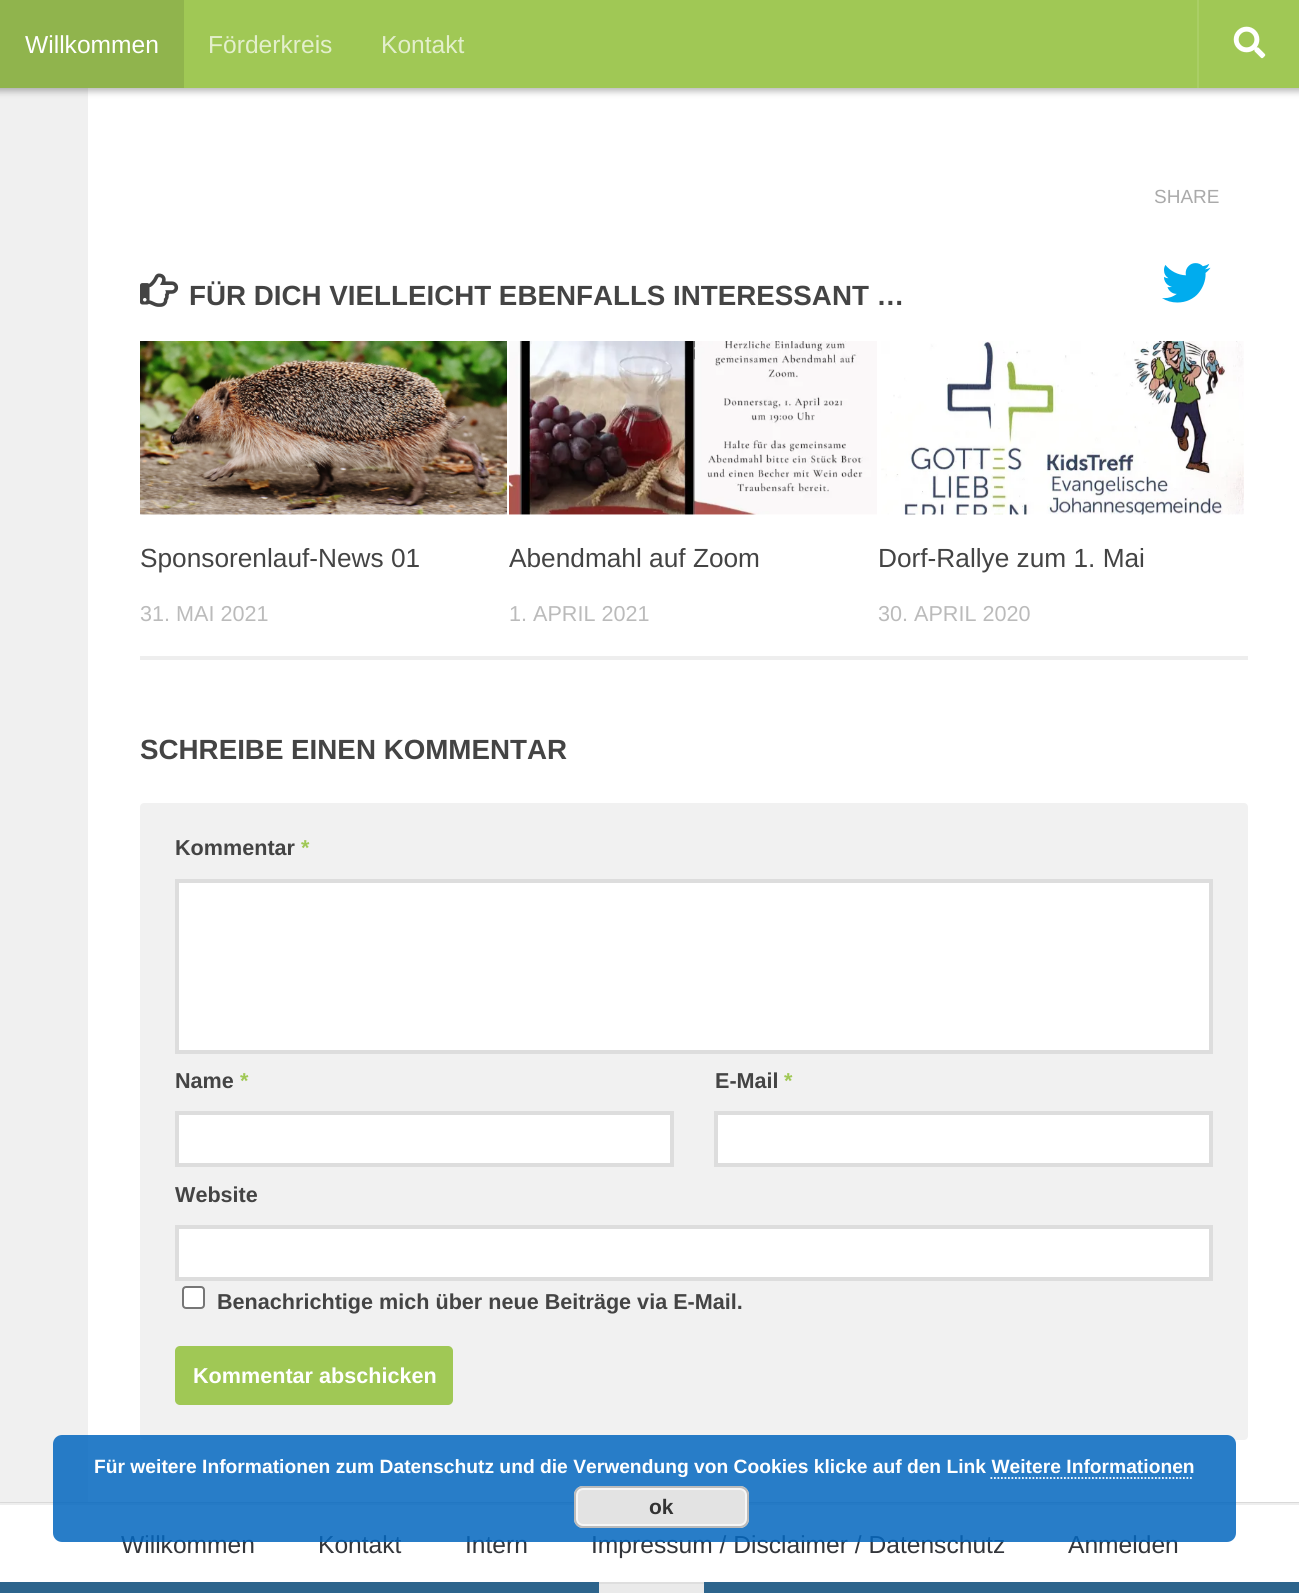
#include <cairo.h>
#include <math.h>
#include <stddef.h>

typedef struct { double x, y; const char *s; } line_t;
typedef struct { double x, y, w, h; unsigned color; } box_t;

static void ink(cairo_t *ctx, unsigned color) {
    cairo_set_source_rgb(ctx, (color >> 16) / 255.0, (color >> 8 & 255) / 255.0, (color & 255) / 255.0);
}

static void round_path(cairo_t *ctx, double x, double y, double w, double h, double r) {
    cairo_new_sub_path(ctx);
    cairo_arc(ctx, x + w - r, y + h - r, r, 0, M_PI / 2);
    cairo_arc(ctx, x + r, y + h - r, r, M_PI / 2, M_PI);
    cairo_arc(ctx, x + r, y + r, r, M_PI, 1.5 * M_PI);
    cairo_arc(ctx, x + w - r, y + r, r, 1.5 * M_PI, 2 * M_PI);
    cairo_close_path(ctx);
}

static void blur_box(cairo_t *ctx, double x, double y, double w, double h, double r, double blur, double alpha) {
    cairo_push_group_with_content(ctx, CAIRO_CONTENT_ALPHA);
    cairo_set_operator(ctx, CAIRO_OPERATOR_SOURCE);
    for (int i = 15; i >= -15 && fmin(w, h) + blur * i / 3 > 0; i -= 2) {
        double e = blur * i / 6;
        cairo_set_source_rgba(ctx, 0, 0, 0, alpha * erfc((i - 1) / 8.5) / 2);
        round_path(ctx, x - e, y - e, w + 2 * e, h + 2 * e, fmax(0, fmin(r + e + blur * .6, fmin(w, h) / 2 + e)));
        cairo_fill(ctx);
    }
    cairo_pattern_t *soft = cairo_pop_group(ctx);
    cairo_mask(ctx, soft);
    cairo_pattern_destroy(soft);
}

static void paste(cairo_t *ctx, const char *path, double x, double y, double w, double h) {
    cairo_surface_t *image = cairo_image_surface_create_from_png(path);
    cairo_save(ctx);
    cairo_set_source_surface(ctx, image, x, y);
    cairo_rectangle(ctx, x, y, w, h);
    cairo_fill(ctx);
    cairo_restore(ctx);
    cairo_surface_destroy(image);
}

int main(void) {
    cairo_surface_t *surface = cairo_image_surface_create(CAIRO_FORMAT_RGB24, 1299, 1593);
    cairo_t *ctx = cairo_create(surface);
    cairo_font_options_t *options = cairo_font_options_create();
    cairo_font_options_set_hint_metrics(options, CAIRO_HINT_METRICS_OFF);
    cairo_font_options_set_hint_style(options, CAIRO_HINT_STYLE_NONE);
    cairo_set_font_options(ctx, options);
    cairo_set_miter_limit(ctx, 4);
    ink(ctx, 0xEAEAEA);
    cairo_paint(ctx);
    ink(ctx, 0x000000);
    blur_box(ctx, 0, -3, 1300, 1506, 0, 1, 0.1);
    ink(ctx, 0xFFFFFF);
    cairo_rectangle(ctx, 88, 88, 1211, 1414);
    cairo_fill(ctx);
    ink(ctx, 0xF0F0F0);
    cairo_rectangle(ctx, 0, 88, 88, 1414);
    cairo_fill(ctx);
    ink(ctx, 0x000000);
    blur_box(ctx, -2, 0, 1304, 91, 0, 3.5, 0.3);
    ink(ctx, 0xA0C855);
    cairo_rectangle(ctx, 184, 0, 1115, 88);
    cairo_fill(ctx);
    ink(ctx, 0x90B44D);
    cairo_rectangle(ctx, 0, 0, 184, 88);
    cairo_fill(ctx);
    cairo_select_font_face(ctx, "Liberation Sans", CAIRO_FONT_SLANT_NORMAL, CAIRO_FONT_WEIGHT_NORMAL);
    cairo_set_font_size(ctx, 24.6);
    ink(ctx, 0xFFFFFF);
    cairo_move_to(ctx, 25, 53);
    cairo_show_text(ctx, "Willkommen");
    ink(ctx, 0xE3EFCC);
    cairo_move_to(ctx, 208, 53);
    cairo_show_text(ctx, "Förderkreis");
    cairo_move_to(ctx, 381, 53);
    cairo_show_text(ctx, "Kontakt");
    ink(ctx, 0xAACE66);
    cairo_new_path(ctx);
    cairo_move_to(ctx, 1197, 0);
    cairo_line_to(ctx, 1197, 88);
    cairo_line_to(ctx, 1299, 88);
    cairo_line_to(ctx, 1199, 88);
    cairo_line_to(ctx, 1199, 0);
    cairo_close_path(ctx);
    cairo_fill(ctx);
    paste(ctx, "media/1.png", 1233, 26, 33, 33);
    cairo_set_font_size(ctx, 19);
    ink(ctx, 0xAAAAAA);
    cairo_move_to(ctx, 1154, 203);
    cairo_show_text(ctx, "SHARE");
    paste(ctx, "media/2.png", 1162, 263, 49, 40);
    paste(ctx, "media/3.png", 140, 273, 39, 34);
    cairo_select_font_face(ctx, "Liberation Sans", CAIRO_FONT_SLANT_NORMAL, CAIRO_FONT_WEIGHT_BOLD);
    cairo_set_font_size(ctx, 27.75);
    ink(ctx, 0x444444);
    cairo_move_to(ctx, 189, 305);
    cairo_show_text(ctx, "FÜR DICH VIELLEICHT EBENFALLS INTERESSANT …");
    ink(ctx, 0xEEEEEE);
    cairo_rectangle(ctx, 140, 656, 1108, 4);
    cairo_fill(ctx);
    paste(ctx, "media/4.png", 140, 341, 367, 174);
    cairo_select_font_face(ctx, "Liberation Sans", CAIRO_FONT_SLANT_NORMAL, CAIRO_FONT_WEIGHT_NORMAL);
    cairo_set_font_size(ctx, 26.25);
    ink(ctx, 0x444444);
    cairo_move_to(ctx, 140, 567);
    cairo_show_text(ctx, "Sponsorenlauf-News 01");
    cairo_set_font_size(ctx, 21.6);
    ink(ctx, 0xBBBBBB);
    cairo_move_to(ctx, 140, 621);
    cairo_show_text(ctx, "31. MAI 2021");
    paste(ctx, "media/5.png", 509, 341, 368, 174);
    cairo_set_font_size(ctx, 26.25);
    ink(ctx, 0x444444);
    cairo_move_to(ctx, 509, 567);
    cairo_show_text(ctx, "Abendmahl auf Zoom");
    cairo_set_font_size(ctx, 21.6);
    ink(ctx, 0xBBBBBB);
    cairo_move_to(ctx, 509, 621);
    cairo_show_text(ctx, "1. APRIL 2021");
    paste(ctx, "media/6.png", 881, 341, 363, 174);
    cairo_set_font_size(ctx, 26.25);
    ink(ctx, 0x444444);
    cairo_move_to(ctx, 878, 567);
    cairo_show_text(ctx, "Dorf-Rallye zum 1. Mai");
    cairo_set_font_size(ctx, 21.6);
    ink(ctx, 0xBBBBBB);
    cairo_move_to(ctx, 878, 621);
    cairo_show_text(ctx, "30. APRIL 2020");
    cairo_select_font_face(ctx, "Liberation Sans", CAIRO_FONT_SLANT_NORMAL, CAIRO_FONT_WEIGHT_BOLD);
    cairo_set_font_size(ctx, 27.75);
    ink(ctx, 0x444444);
    cairo_move_to(ctx, 140, 759);
    cairo_show_text(ctx, "SCHREIBE EINEN KOMMENTAR");
    ink(ctx, 0xF1F1F1);
    round_path(ctx, 140, 803, 1108, 637, 4);
    cairo_fill(ctx);
    cairo_set_font_size(ctx, 21.6);
    ink(ctx, 0x444444);
    cairo_move_to(ctx, 175, 855);
    cairo_show_text(ctx, "Kommentar");
    ink(ctx, 0xA0C855);
    cairo_move_to(ctx, 301, 855);
    cairo_show_text(ctx, "*");
    ink(ctx, 0xFFFFFF);
    cairo_rectangle(ctx, 177, 881, 1034, 171);
    cairo_fill_preserve(ctx);
    ink(ctx, 0xDDDDDD);
    cairo_set_line_width(ctx, 4);
    cairo_stroke(ctx);
    ink(ctx, 0x444444);
    cairo_move_to(ctx, 175, 1088);
    cairo_show_text(ctx, "Name");
    ink(ctx, 0xA0C855);
    cairo_move_to(ctx, 240, 1088);
    cairo_show_text(ctx, "*");
    ink(ctx, 0xFFFFFF);
    cairo_rectangle(ctx, 177, 1113, 495, 52);
    cairo_fill_preserve(ctx);
    ink(ctx, 0xDDDDDD);
    cairo_stroke(ctx);
    ink(ctx, 0x444444);
    cairo_move_to(ctx, 715, 1088);
    cairo_show_text(ctx, "E-Mail");
    ink(ctx, 0xA0C855);
    cairo_move_to(ctx, 784, 1088);
    cairo_show_text(ctx, "*");
    ink(ctx, 0xFFFFFF);
    cairo_rectangle(ctx, 716, 1113, 495, 52);
    cairo_fill_preserve(ctx);
    ink(ctx, 0xDDDDDD);
    cairo_stroke(ctx);
    ink(ctx, 0x444444);
    cairo_move_to(ctx, 175, 1202);
    cairo_show_text(ctx, "Website");
    ink(ctx, 0xFFFFFF);
    cairo_rectangle(ctx, 177, 1227, 1034, 52);
    cairo_fill_preserve(ctx);
    ink(ctx, 0xDDDDDD);
    cairo_stroke(ctx);
    ink(ctx, 0xFFFFFF);
    round_path(ctx, 183, 1287, 21, 21, 3);
    cairo_fill_preserve(ctx);
    ink(ctx, 0x767676);
    cairo_set_line_width(ctx, 2);
    cairo_stroke(ctx);
    ink(ctx, 0x444444);
    cairo_move_to(ctx, 217, 1309);
    cairo_show_text(ctx, "Benachrichtige mich über neue Beiträge via E-Mail.");
    ink(ctx, 0xA0C855);
    round_path(ctx, 175, 1346, 278, 59, 5);
    cairo_fill(ctx);
    ink(ctx, 0xFFFFFF);
    cairo_move_to(ctx, 193, 1383);
    cairo_show_text(ctx, "Kommentar abschicken");
    cairo_rectangle(ctx, 0, 1505, 1299, 77);
    cairo_fill(ctx);
    ink(ctx, 0xEEEEEE);
    cairo_rectangle(ctx, 0, 1503, 1299, 2);
    cairo_fill(ctx);
    cairo_select_font_face(ctx, "Liberation Sans", CAIRO_FONT_SLANT_NORMAL, CAIRO_FONT_WEIGHT_NORMAL);
    cairo_set_font_size(ctx, 24.6);
    ink(ctx, 0x33363B);
    {
        static const line_t items[] = {
            {121, 1553, "Willkommen"},
            {318, 1553, "Kontakt"},
            {465, 1553, "Intern"},
            {591, 1553, "Impressum / Disclaimer / Datenschutz"},
            {1068, 1553, "Anmelden"},
        };
        for (size_t i = 0; i < sizeof items / sizeof *items; i++) {
            cairo_move_to(ctx, items[i].x, items[i].y);
            cairo_show_text(ctx, items[i].s);
        }
    }
    {
        static const box_t items[] = {
            {0, 1582, 1299, 11, 0x2D648C},
            {599, 1584, 105, 9, 0xEAEAEA},
            {599, 1582, 105, 2, 0xDEDEDE},
        };
        for (size_t i = 0; i < sizeof items / sizeof *items; i++) {
            ink(ctx, items[i].color);
            cairo_rectangle(ctx, items[i].x, items[i].y, items[i].w, items[i].h);
            cairo_fill(ctx);
        }
    }
    cairo_set_source_rgba(ctx, 0.012, 0.404, 0.749, 0.85);
    round_path(ctx, 53, 1435, 1183, 107, 9);
    cairo_fill(ctx);
    cairo_select_font_face(ctx, "Liberation Sans", CAIRO_FONT_SLANT_NORMAL, CAIRO_FONT_WEIGHT_BOLD);
    cairo_set_font_size(ctx, 19.25);
    ink(ctx, 0xFFFFFF);
    cairo_move_to(ctx, 94, 1473);
    cairo_show_text(ctx, "Für weitere Informationen zum Datenschutz und die Verwendung von Cookies klicke auf den Link Weitere Informationen");
    cairo_new_path(ctx);
    cairo_move_to(ctx, 990.5, 1478);
    cairo_line_to(ctx, 1193.5, 1478);
    cairo_set_line_width(ctx, 1.8);
    cairo_set_dash(ctx, (double[]){1.75, 1.75}, 2, 0);
    cairo_stroke(ctx);
    ink(ctx, 0xE3E3E3);
    round_path(ctx, 574, 1486, 175, 42, 9);
    cairo_fill(ctx);
    round_path(ctx, 577, 1489, 169, 36, 6);
    ink(ctx, 0xF6F6F6);
    cairo_set_line_width(ctx, 2);
    cairo_set_dash(ctx, NULL, 0, 0);
    cairo_stroke(ctx);
    round_path(ctx, 575, 1487, 173, 40, 8);
    ink(ctx, 0xBBBBBB);
    cairo_stroke(ctx);
    cairo_set_font_size(ctx, 21);
    ink(ctx, 0x333333);
    cairo_move_to(ctx, 649, 1514);
    cairo_show_text(ctx, "ok");
    cairo_surface_write_to_png(surface, "image.png");
    cairo_font_options_destroy(options);
    cairo_destroy(ctx);
    cairo_surface_destroy(surface);
    return 0;
}
